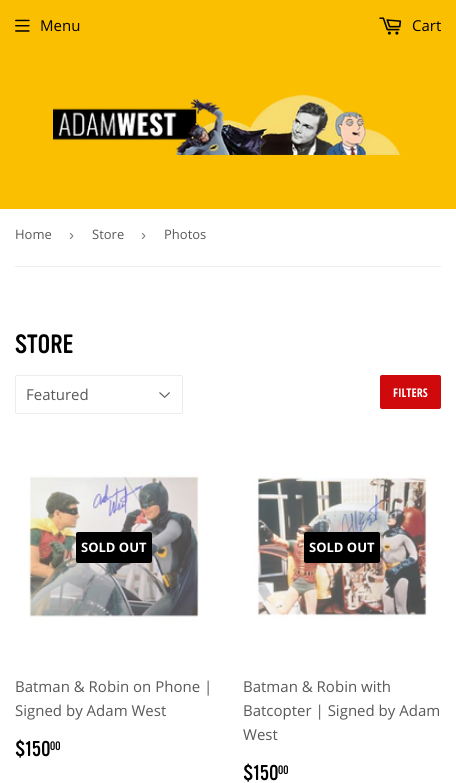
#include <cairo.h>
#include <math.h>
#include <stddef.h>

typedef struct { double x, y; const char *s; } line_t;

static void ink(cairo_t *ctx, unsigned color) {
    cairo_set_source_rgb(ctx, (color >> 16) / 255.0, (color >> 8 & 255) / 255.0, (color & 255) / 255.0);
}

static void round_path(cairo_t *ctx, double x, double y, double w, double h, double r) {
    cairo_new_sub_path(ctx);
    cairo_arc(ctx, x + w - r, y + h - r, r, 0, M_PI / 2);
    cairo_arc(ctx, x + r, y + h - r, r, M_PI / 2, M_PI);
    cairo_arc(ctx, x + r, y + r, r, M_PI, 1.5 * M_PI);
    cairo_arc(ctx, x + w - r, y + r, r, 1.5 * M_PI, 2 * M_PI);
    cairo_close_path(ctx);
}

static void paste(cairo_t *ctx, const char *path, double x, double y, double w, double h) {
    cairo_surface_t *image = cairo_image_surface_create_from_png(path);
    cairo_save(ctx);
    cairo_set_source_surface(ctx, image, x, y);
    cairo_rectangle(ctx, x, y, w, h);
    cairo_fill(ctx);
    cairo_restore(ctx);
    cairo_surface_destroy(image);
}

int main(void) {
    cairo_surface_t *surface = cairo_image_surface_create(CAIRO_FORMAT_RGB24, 456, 783);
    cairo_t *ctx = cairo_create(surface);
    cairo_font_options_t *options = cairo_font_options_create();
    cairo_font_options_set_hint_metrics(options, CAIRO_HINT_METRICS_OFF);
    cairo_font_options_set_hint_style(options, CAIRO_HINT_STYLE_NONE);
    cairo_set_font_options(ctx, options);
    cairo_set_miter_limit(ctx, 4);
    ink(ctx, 0xFFFFFF);
    cairo_paint(ctx);
    ink(ctx, 0xFABF01);
    cairo_rectangle(ctx, 0, 0, 456, 209);
    cairo_fill(ctx);
    paste(ctx, "media/1.png", 53, 95, 348, 60);
    paste(ctx, "media/2.png", 15, 19, 15, 13);
    cairo_select_font_face(ctx, "Open Sans", CAIRO_FONT_SLANT_NORMAL, CAIRO_FONT_WEIGHT_NORMAL);
    cairo_set_font_size(ctx, 15);
    ink(ctx, 0x000000);
    cairo_move_to(ctx, 40, 31);
    cairo_show_text(ctx, "Menu");
    paste(ctx, "media/3.png", 379, 17, 23, 18);
    cairo_move_to(ctx, 412, 31);
    cairo_show_text(ctx, "Cart");
    ink(ctx, 0xECECEC);
    cairo_rectangle(ctx, 15, 266, 426, 1);
    cairo_fill(ctx);
    cairo_set_font_size(ctx, 13);
    ink(ctx, 0x585858);
    cairo_move_to(ctx, 15, 239);
    cairo_show_text(ctx, "Home");
    cairo_select_font_face(ctx, "Liberation Sans", CAIRO_FONT_SLANT_NORMAL, CAIRO_FONT_WEIGHT_NORMAL);
    cairo_set_font_size(ctx, 15);
    ink(ctx, 0x767676);
    cairo_move_to(ctx, 69, 240);
    cairo_show_text(ctx, "›");
    cairo_select_font_face(ctx, "Open Sans", CAIRO_FONT_SLANT_NORMAL, CAIRO_FONT_WEIGHT_NORMAL);
    cairo_set_font_size(ctx, 13);
    ink(ctx, 0x585858);
    cairo_move_to(ctx, 92, 239);
    cairo_show_text(ctx, "Store");
    cairo_select_font_face(ctx, "Liberation Sans", CAIRO_FONT_SLANT_NORMAL, CAIRO_FONT_WEIGHT_NORMAL);
    cairo_set_font_size(ctx, 15);
    ink(ctx, 0x767676);
    cairo_move_to(ctx, 141, 240);
    cairo_show_text(ctx, "›");
    cairo_select_font_face(ctx, "Open Sans", CAIRO_FONT_SLANT_NORMAL, CAIRO_FONT_WEIGHT_NORMAL);
    cairo_set_font_size(ctx, 13);
    ink(ctx, 0x585858);
    cairo_move_to(ctx, 164, 239);
    cairo_show_text(ctx, "Photos");
    cairo_select_font_face(ctx, "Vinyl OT", CAIRO_FONT_SLANT_NORMAL, CAIRO_FONT_WEIGHT_NORMAL);
    cairo_set_font_size(ctx, 26);
    ink(ctx, 0x000000);
    cairo_move_to(ctx, 15, 353);
    cairo_show_text(ctx, "STORE");
    paste(ctx, "media/4.png", 159, 392, 11, 6);
    round_path(ctx, 15.5, 375.5, 167, 38, 1.5);
    ink(ctx, 0xECECEC);
    cairo_set_line_width(ctx, 1);
    cairo_stroke(ctx);
    cairo_select_font_face(ctx, "Open Sans", CAIRO_FONT_SLANT_NORMAL, CAIRO_FONT_WEIGHT_NORMAL);
    cairo_set_font_size(ctx, 15);
    ink(ctx, 0x585858);
    cairo_move_to(ctx, 26, 400);
    cairo_show_text(ctx, "Featured");
    ink(ctx, 0xD0090C);
    round_path(ctx, 380, 375, 61, 34, 2);
    cairo_fill(ctx);
    cairo_select_font_face(ctx, "Open Sans Condensed", CAIRO_FONT_SLANT_NORMAL, CAIRO_FONT_WEIGHT_BOLD);
    cairo_set_font_size(ctx, 12);
    ink(ctx, 0xFFFFFF);
    cairo_move_to(ctx, 393, 397);
    cairo_show_text(ctx, "FILTERS");
    paste(ctx, "media/5.png", 29, 472, 171, 149);
    ink(ctx, 0x000000);
    round_path(ctx, 76, 532, 76, 31, 2);
    cairo_fill(ctx);
    cairo_select_font_face(ctx, "Open Sans", CAIRO_FONT_SLANT_NORMAL, CAIRO_FONT_WEIGHT_BOLD);
    cairo_set_font_size(ctx, 13);
    ink(ctx, 0xFFFFFF);
    cairo_move_to(ctx, 81, 552);
    cairo_show_text(ctx, "SOLD OUT");
    cairo_select_font_face(ctx, "Open Sans", CAIRO_FONT_SLANT_NORMAL, CAIRO_FONT_WEIGHT_NORMAL);
    cairo_set_font_size(ctx, 15);
    ink(ctx, 0x585858);
    cairo_move_to(ctx, 15, 692);
    cairo_show_text(ctx, "Batman & Robin on Phone |");
    cairo_move_to(ctx, 15, 716);
    cairo_show_text(ctx, "Signed by Adam West");
    cairo_select_font_face(ctx, "Vinyl OT", CAIRO_FONT_SLANT_NORMAL, CAIRO_FONT_WEIGHT_NORMAL);
    cairo_set_font_size(ctx, 21);
    ink(ctx, 0x000000);
    cairo_move_to(ctx, 15, 756);
    cairo_show_text(ctx, "$150");
    cairo_set_font_size(ctx, 12);
    cairo_move_to(ctx, 50, 750);
    cairo_show_text(ctx, "00");
    paste(ctx, "media/6.png", 252, 472, 176, 149);
    round_path(ctx, 304, 532, 76, 31, 2);
    cairo_fill(ctx);
    cairo_select_font_face(ctx, "Open Sans", CAIRO_FONT_SLANT_NORMAL, CAIRO_FONT_WEIGHT_BOLD);
    cairo_set_font_size(ctx, 13);
    ink(ctx, 0xFFFFFF);
    cairo_move_to(ctx, 309, 552);
    cairo_show_text(ctx, "SOLD OUT");
    cairo_select_font_face(ctx, "Open Sans", CAIRO_FONT_SLANT_NORMAL, CAIRO_FONT_WEIGHT_NORMAL);
    cairo_set_font_size(ctx, 15);
    ink(ctx, 0x585858);
    {
        static const line_t items[] = {
            {243, 692, "Batman & Robin with"},
            {243, 716, "Batcopter | Signed by Adam"},
            {243, 740, "West"},
        };
        for (size_t i = 0; i < sizeof items / sizeof *items; i++) {
            cairo_move_to(ctx, items[i].x, items[i].y);
            cairo_show_text(ctx, items[i].s);
        }
    }
    cairo_select_font_face(ctx, "Vinyl OT", CAIRO_FONT_SLANT_NORMAL, CAIRO_FONT_WEIGHT_NORMAL);
    cairo_set_font_size(ctx, 21);
    ink(ctx, 0x000000);
    cairo_move_to(ctx, 243, 780);
    cairo_show_text(ctx, "$150");
    cairo_set_font_size(ctx, 12);
    cairo_move_to(ctx, 278, 774);
    cairo_show_text(ctx, "00");
    cairo_surface_write_to_png(surface, "image.png");
    cairo_font_options_destroy(options);
    cairo_destroy(ctx);
    cairo_surface_destroy(surface);
    return 0;
}
